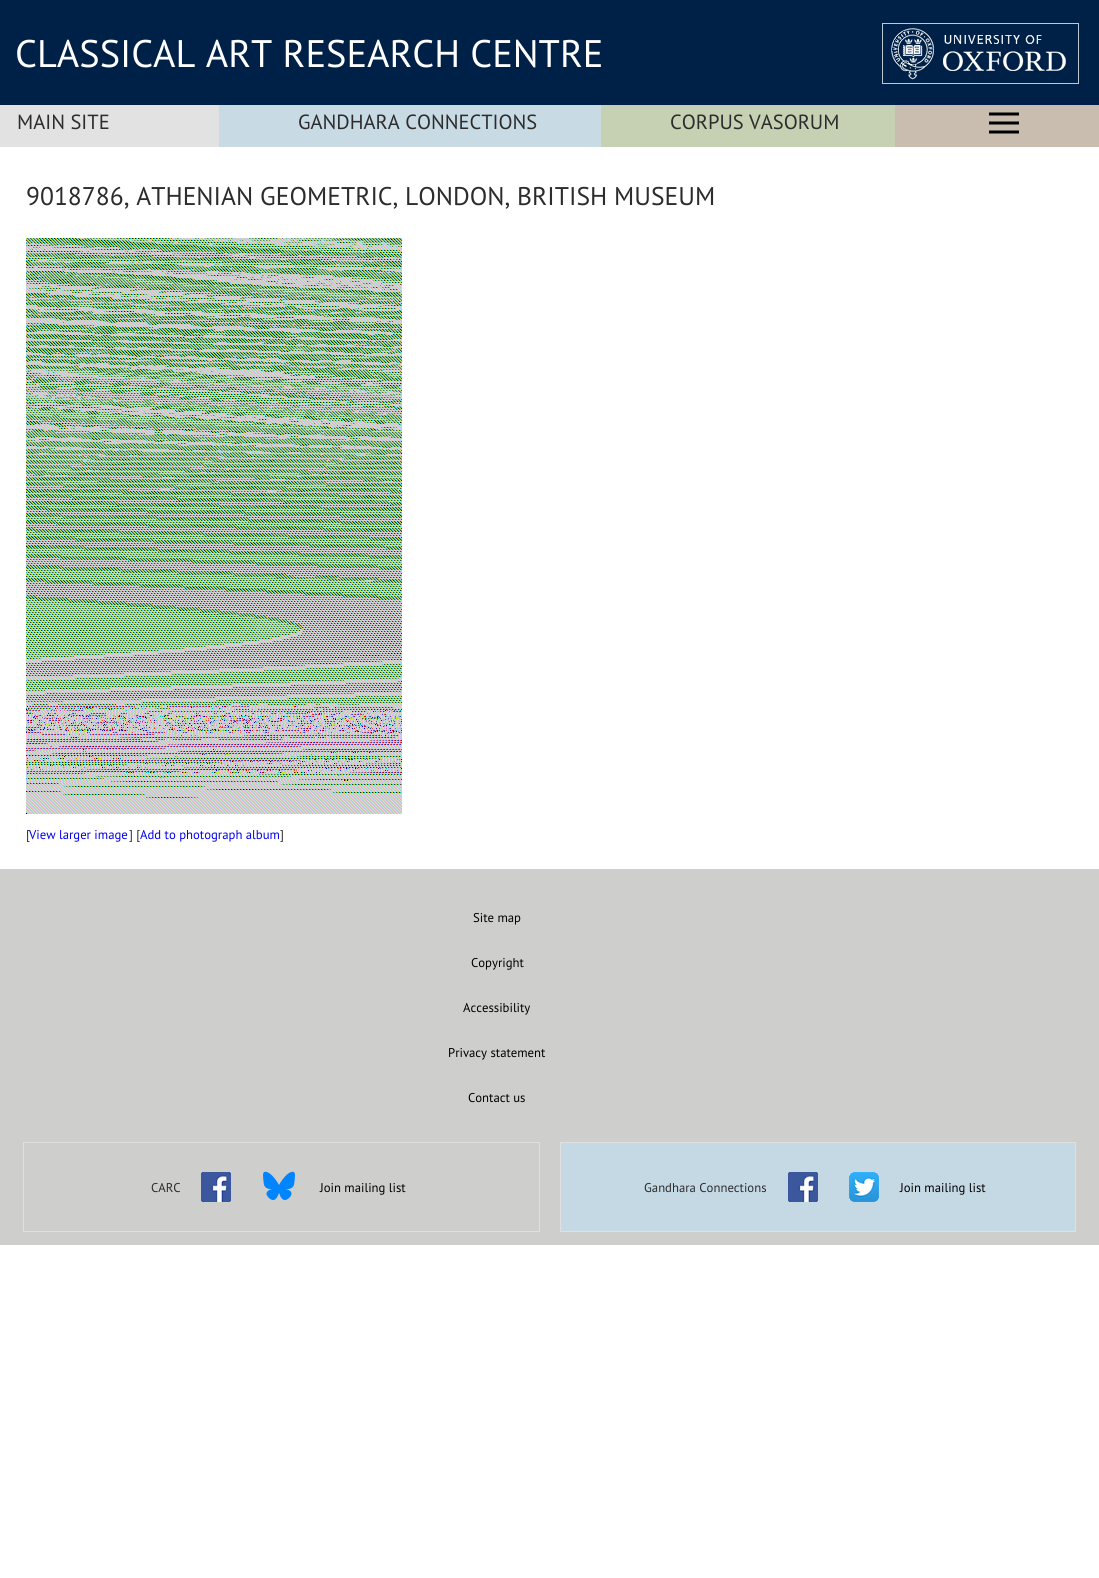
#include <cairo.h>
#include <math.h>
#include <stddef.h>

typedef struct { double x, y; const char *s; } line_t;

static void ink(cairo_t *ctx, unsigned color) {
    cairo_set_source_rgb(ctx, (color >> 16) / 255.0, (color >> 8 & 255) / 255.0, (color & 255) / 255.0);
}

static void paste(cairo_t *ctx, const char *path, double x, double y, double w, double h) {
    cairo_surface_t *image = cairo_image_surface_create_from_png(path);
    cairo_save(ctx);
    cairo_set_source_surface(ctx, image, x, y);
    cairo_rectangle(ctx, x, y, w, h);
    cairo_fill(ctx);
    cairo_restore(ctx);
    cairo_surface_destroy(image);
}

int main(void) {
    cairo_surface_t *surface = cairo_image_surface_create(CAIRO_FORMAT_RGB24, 1099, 1578);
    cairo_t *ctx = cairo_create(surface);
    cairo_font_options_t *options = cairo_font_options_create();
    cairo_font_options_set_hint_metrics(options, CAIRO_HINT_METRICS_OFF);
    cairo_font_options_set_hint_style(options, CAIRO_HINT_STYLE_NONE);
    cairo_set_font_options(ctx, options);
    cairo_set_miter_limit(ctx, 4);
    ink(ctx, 0xFFFFFF);
    cairo_paint(ctx);
    ink(ctx, 0x002147);
    cairo_rectangle(ctx, 0, 0, 1099, 105);
    cairo_fill(ctx);
    cairo_select_font_face(ctx, "PT Sans", CAIRO_FONT_SLANT_NORMAL, CAIRO_FONT_WEIGHT_NORMAL);
    cairo_set_font_size(ctx, 38.4);
    ink(ctx, 0xFFFFFF);
    cairo_move_to(ctx, 15, 67);
    cairo_show_text(ctx, "CLASSICAL ART RESEARCH CENTRE");
    paste(ctx, "media/1.png", 882, 23, 197, 61);
    ink(ctx, 0xE2E2E2);
    cairo_rectangle(ctx, 0, 105, 219, 42);
    cairo_fill(ctx);
    cairo_set_font_size(ctx, 20.5);
    ink(ctx, 0x2C2C2C);
    cairo_move_to(ctx, 17, 129);
    cairo_show_text(ctx, "MAIN SITE");
    ink(ctx, 0xC8DBE5);
    cairo_rectangle(ctx, 219, 105, 382, 42);
    cairo_fill(ctx);
    ink(ctx, 0x2C2C2C);
    cairo_move_to(ctx, 298, 129);
    cairo_show_text(ctx, "GANDHARA CONNECTIONS");
    ink(ctx, 0xC5D1B2);
    cairo_rectangle(ctx, 601, 105, 294, 42);
    cairo_fill(ctx);
    ink(ctx, 0x2C2C2C);
    cairo_move_to(ctx, 670, 129);
    cairo_show_text(ctx, "CORPUS VASORUM");
    ink(ctx, 0xC8BDAE);
    cairo_rectangle(ctx, 895, 105, 204, 42);
    cairo_fill(ctx);
    paste(ctx, "media/2.png", 989, 112, 30, 22);
    cairo_set_font_size(ctx, 25.6);
    ink(ctx, 0x2C2C2C);
    cairo_move_to(ctx, 26, 205);
    cairo_show_text(ctx, "9018786, ATHENIAN GEOMETRIC, LONDON, BRITISH MUSEUM");
    paste(ctx, "media/3.png", 26, 238, 376, 576);
    cairo_set_font_size(ctx, 12.75);
    cairo_move_to(ctx, 26, 839);
    cairo_show_text(ctx, "[");
    ink(ctx, 0x0000EE);
    cairo_move_to(ctx, 29, 839);
    cairo_show_text(ctx, "View larger image");
    ink(ctx, 0x2C2C2C);
    cairo_move_to(ctx, 129, 839);
    cairo_show_text(ctx, "] [");
    ink(ctx, 0x0000EE);
    cairo_move_to(ctx, 140, 839);
    cairo_show_text(ctx, "Add to photograph album");
    ink(ctx, 0x2C2C2C);
    cairo_move_to(ctx, 280, 839);
    cairo_show_text(ctx, "]");
    ink(ctx, 0xCECECC);
    cairo_rectangle(ctx, 0, 869, 1099, 376);
    cairo_fill(ctx);
    ink(ctx, 0x000000);
    {
        static const line_t items[] = {
            {473, 922, "Site map"},
            {471, 967, "Copyright"},
            {463, 1012, "Accessibility"},
            {448, 1057, "Privacy statement"},
            {468, 1102, "Contact us"},
        };
        for (size_t i = 0; i < sizeof items / sizeof *items; i++) {
            cairo_move_to(ctx, items[i].x, items[i].y);
            cairo_show_text(ctx, items[i].s);
        }
    }
    cairo_rectangle(ctx, 23.5, 1142.5, 516, 89);
    ink(ctx, 0xE0E0E0);
    cairo_set_line_width(ctx, 1);
    cairo_stroke(ctx);
    ink(ctx, 0x2C2C2C);
    cairo_move_to(ctx, 151, 1192);
    cairo_show_text(ctx, "CARC");
    paste(ctx, "media/4.png", 201, 1172, 30, 30);
    paste(ctx, "media/5.png", 263, 1171, 32, 29);
    ink(ctx, 0x000000);
    cairo_move_to(ctx, 320, 1192);
    cairo_show_text(ctx, "Join mailing list");
    ink(ctx, 0xC5D9E4);
    cairo_rectangle(ctx, 560.5, 1142.5, 515, 89);
    cairo_fill_preserve(ctx);
    ink(ctx, 0xE0E0E0);
    cairo_stroke(ctx);
    ink(ctx, 0x2C2C2C);
    cairo_move_to(ctx, 644, 1192);
    cairo_show_text(ctx, "Gandhara Connections");
    paste(ctx, "media/4.png", 788, 1172, 30, 30);
    paste(ctx, "media/6.png", 849, 1172, 30, 30);
    ink(ctx, 0x000000);
    cairo_move_to(ctx, 900, 1192);
    cairo_show_text(ctx, "Join mailing list");
    cairo_surface_write_to_png(surface, "image.png");
    cairo_font_options_destroy(options);
    cairo_destroy(ctx);
    cairo_surface_destroy(surface);
    return 0;
}
